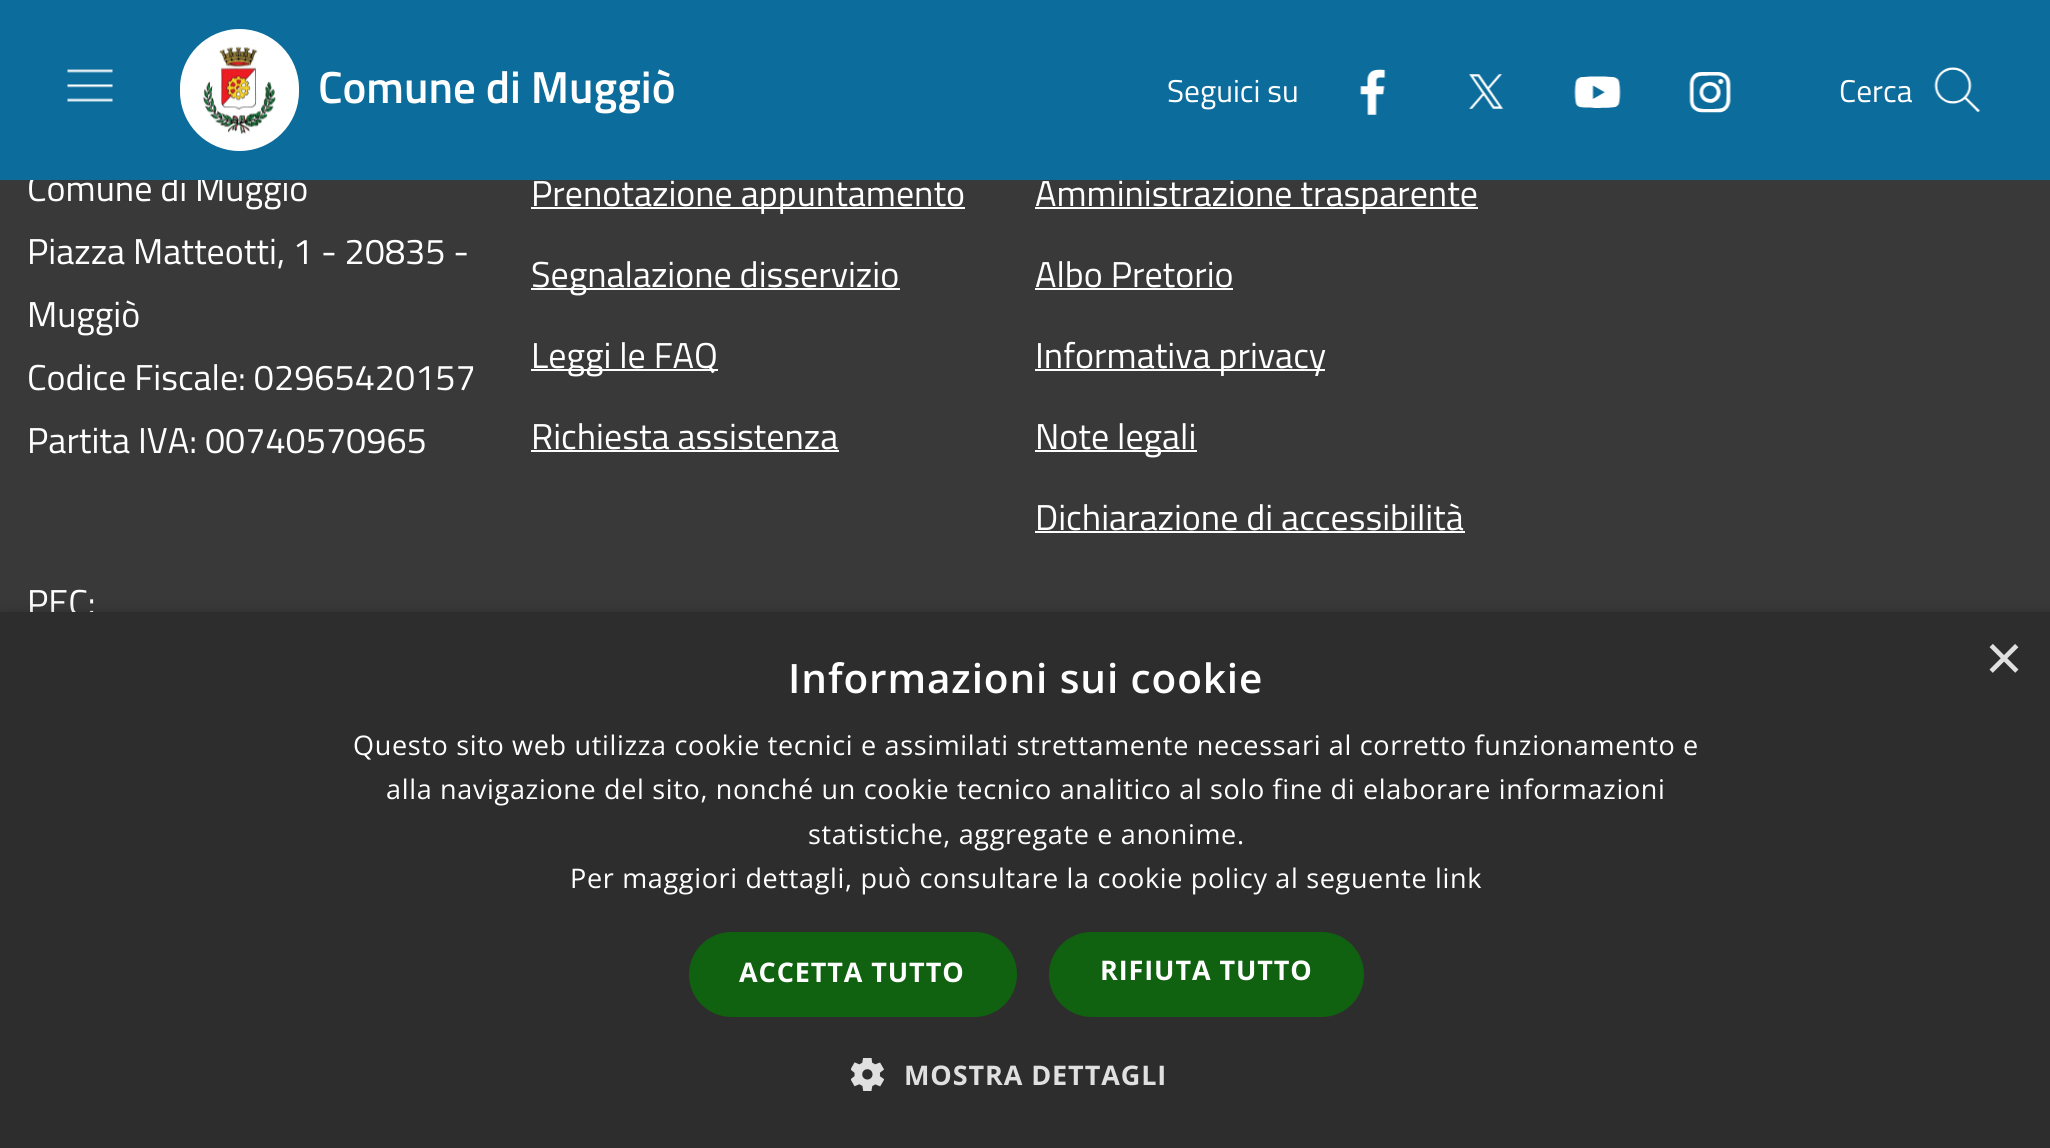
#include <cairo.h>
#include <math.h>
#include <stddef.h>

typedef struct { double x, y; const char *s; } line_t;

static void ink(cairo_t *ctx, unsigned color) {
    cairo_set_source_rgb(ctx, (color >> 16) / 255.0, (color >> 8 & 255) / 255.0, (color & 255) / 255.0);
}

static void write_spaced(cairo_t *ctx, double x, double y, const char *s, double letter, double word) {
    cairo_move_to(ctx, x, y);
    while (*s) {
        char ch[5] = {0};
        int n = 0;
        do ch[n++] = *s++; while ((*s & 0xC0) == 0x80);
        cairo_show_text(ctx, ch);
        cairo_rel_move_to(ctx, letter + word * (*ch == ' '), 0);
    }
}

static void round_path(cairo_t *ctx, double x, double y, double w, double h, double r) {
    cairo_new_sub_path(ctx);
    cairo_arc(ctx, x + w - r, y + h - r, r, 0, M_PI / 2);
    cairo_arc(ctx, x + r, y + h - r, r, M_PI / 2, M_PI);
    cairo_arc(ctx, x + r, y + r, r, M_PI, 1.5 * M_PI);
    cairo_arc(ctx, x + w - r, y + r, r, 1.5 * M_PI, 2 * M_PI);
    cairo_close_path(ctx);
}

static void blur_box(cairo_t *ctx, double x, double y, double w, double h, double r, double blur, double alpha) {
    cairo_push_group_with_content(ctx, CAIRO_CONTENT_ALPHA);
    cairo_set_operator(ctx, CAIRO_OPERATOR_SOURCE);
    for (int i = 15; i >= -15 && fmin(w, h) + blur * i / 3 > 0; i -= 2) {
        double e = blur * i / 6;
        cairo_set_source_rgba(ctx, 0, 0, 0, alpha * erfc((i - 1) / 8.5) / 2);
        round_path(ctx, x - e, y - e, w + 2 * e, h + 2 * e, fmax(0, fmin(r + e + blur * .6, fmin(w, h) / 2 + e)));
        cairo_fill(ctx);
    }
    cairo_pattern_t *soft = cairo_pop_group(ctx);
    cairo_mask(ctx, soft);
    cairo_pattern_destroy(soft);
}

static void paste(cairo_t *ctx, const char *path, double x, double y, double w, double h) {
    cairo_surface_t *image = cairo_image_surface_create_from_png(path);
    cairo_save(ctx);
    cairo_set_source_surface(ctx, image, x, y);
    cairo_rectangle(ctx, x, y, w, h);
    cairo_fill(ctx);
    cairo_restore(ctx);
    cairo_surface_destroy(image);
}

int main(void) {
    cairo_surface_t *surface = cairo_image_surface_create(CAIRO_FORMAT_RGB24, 2050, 1148);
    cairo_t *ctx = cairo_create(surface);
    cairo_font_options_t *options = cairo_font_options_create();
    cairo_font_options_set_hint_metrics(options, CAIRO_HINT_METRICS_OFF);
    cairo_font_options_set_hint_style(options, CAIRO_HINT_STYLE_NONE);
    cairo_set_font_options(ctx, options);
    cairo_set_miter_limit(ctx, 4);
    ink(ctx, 0x393939);
    cairo_paint(ctx);
    cairo_select_font_face(ctx, "Titillium Web", CAIRO_FONT_SLANT_NORMAL, CAIRO_FONT_WEIGHT_NORMAL);
    cairo_set_font_size(ctx, 36);
    ink(ctx, 0xFFFFFF);
    cairo_move_to(ctx, 27, 201);
    cairo_show_text(ctx, "Comune di Muggiò");
    ink(ctx, 0x0C6C9C);
    cairo_rectangle(ctx, 0, 0, 2050, 180);
    cairo_fill(ctx);
    paste(ctx, "media/1.png", 67, 69, 46, 33);
    ink(ctx, 0xFFFFFF);
    round_path(ctx, 181, 30, 117, 120, 58.5);
    cairo_fill_preserve(ctx);
    cairo_stroke(ctx);
    paste(ctx, "media/2.png", 202, 46, 74, 89);
    cairo_select_font_face(ctx, "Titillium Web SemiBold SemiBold", CAIRO_FONT_SLANT_NORMAL, CAIRO_FONT_WEIGHT_NORMAL);
    cairo_set_font_size(ctx, 45);
    cairo_move_to(ctx, 318, 103);
    cairo_show_text(ctx, "Comune di Muggiò");
    cairo_select_font_face(ctx, "Titillium Web", CAIRO_FONT_SLANT_NORMAL, CAIRO_FONT_WEIGHT_NORMAL);
    cairo_set_font_size(ctx, 31.5);
    cairo_move_to(ctx, 1167, 102);
    cairo_show_text(ctx, "Seguici su");
    paste(ctx, "media/3.png", 1360, 69, 26, 46);
    paste(ctx, "media/4.png", 1469, 74, 35, 35);
    paste(ctx, "media/5.png", 1574, 76, 47, 32);
    paste(ctx, "media/6.png", 1689, 72, 42, 41);
    cairo_move_to(ctx, 1839, 102);
    cairo_show_text(ctx, "Cerca");
    paste(ctx, "media/7.png", 1934, 67, 47, 46);
    cairo_set_font_size(ctx, 36);
    {
        static const line_t items[] = {
            {27, 264, "Piazza Matteotti, 1 - 20835 -"},
            {27, 327, "Muggiò"},
            {27, 390, "Codice Fiscale: 02965420157"},
            {27, 453, "Partita IVA: 00740570965"},
            {27, 615, "PEC:"},
        };
        for (size_t i = 0; i < sizeof items / sizeof *items; i++) {
            cairo_move_to(ctx, items[i].x, items[i].y);
            cairo_show_text(ctx, items[i].s);
        }
    }
    cairo_rectangle(ctx, 531, 207, 434, 2);
    cairo_fill(ctx);
    cairo_move_to(ctx, 531, 206);
    cairo_show_text(ctx, "Prenotazione appuntamento");
    cairo_rectangle(ctx, 531, 288, 369, 2);
    cairo_fill(ctx);
    cairo_move_to(ctx, 531, 287);
    cairo_show_text(ctx, "Segnalazione disservizio");
    cairo_rectangle(ctx, 531, 369, 187, 2);
    cairo_fill(ctx);
    cairo_move_to(ctx, 531, 368);
    cairo_show_text(ctx, "Leggi le FAQ");
    cairo_move_to(ctx, 531, 449);
    cairo_show_text(ctx, "Richiesta assistenza");
    cairo_rectangle(ctx, 531, 450, 308, 2);
    cairo_fill(ctx);
    cairo_rectangle(ctx, 1035, 207, 443, 2);
    cairo_fill(ctx);
    cairo_move_to(ctx, 1035, 206);
    cairo_show_text(ctx, "Amministrazione trasparente");
    cairo_move_to(ctx, 1035, 287);
    cairo_show_text(ctx, "Albo Pretorio");
    cairo_rectangle(ctx, 1035, 288, 198, 2);
    cairo_fill(ctx);
    cairo_rectangle(ctx, 1035, 369, 290, 2);
    cairo_fill(ctx);
    cairo_move_to(ctx, 1035, 368);
    cairo_show_text(ctx, "Informativa privacy");
    cairo_rectangle(ctx, 1035, 450, 162, 2);
    cairo_fill(ctx);
    cairo_move_to(ctx, 1035, 449);
    cairo_show_text(ctx, "Note legali");
    cairo_move_to(ctx, 1035, 530);
    cairo_show_text(ctx, "Dichiarazione di accessibilità");
    cairo_rectangle(ctx, 1035, 531, 430, 2);
    cairo_fill(ctx);
    ink(ctx, 0x000000);
    blur_box(ctx, 2, 617, 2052, 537, 0, 9, 0.35);
    ink(ctx, 0x2D2D2D);
    cairo_rectangle(ctx, 0, 612, 2050, 536);
    cairo_fill(ctx);
    cairo_select_font_face(ctx, "Liberation Sans", CAIRO_FONT_SLANT_NORMAL, CAIRO_FONT_WEIGHT_NORMAL);
    cairo_set_font_size(ctx, 65);
    ink(ctx, 0xE0E0E0);
    cairo_move_to(ctx, 1985, 680);
    cairo_show_text(ctx, "×");
    cairo_select_font_face(ctx, "Open Sans SemiBold", CAIRO_FONT_SLANT_NORMAL, CAIRO_FONT_WEIGHT_NORMAL);
    cairo_set_font_size(ctx, 40.5);
    ink(ctx, 0xFFFFFF);
    write_spaced(ctx, 788, 693, "Informazioni sui cookie", 0.9, 0);
    cairo_select_font_face(ctx, "Open Sans", CAIRO_FONT_SLANT_NORMAL, CAIRO_FONT_WEIGHT_NORMAL);
    cairo_set_font_size(ctx, 27);
    {
        static const line_t items[] = {
            {353, 755, "Questo sito web utilizza cookie tecnici e assimilati strettamente necessari al corretto funzionamento e"},
            {386, 799, "alla navigazione del sito, nonché un cookie tecnico analitico al solo fine di elaborare informazioni"},
            {808, 844, "statistiche, aggregate e anonime."},
            {570, 888, "Per maggiori dettagli, può consultare la cookie policy al seguente link"},
        };
        for (size_t i = 0; i < sizeof items / sizeof *items; i++) {
            write_spaced(ctx, items[i].x, items[i].y, items[i].s, 0.67, 0);
        }
    }
    ink(ctx, 0x106110);
    round_path(ctx, 689, 932, 328, 85, 42.5);
    cairo_fill(ctx);
    cairo_select_font_face(ctx, "Open Sans", CAIRO_FONT_SLANT_NORMAL, CAIRO_FONT_WEIGHT_BOLD);
    ink(ctx, 0xFFFFFF);
    write_spaced(ctx, 739, 982, "ACCETTA TUTTO", 0.9, 0);
    ink(ctx, 0x106110);
    round_path(ctx, 1049, 932, 315, 85, 42.5);
    cairo_fill(ctx);
    ink(ctx, 0xFFFFFF);
    write_spaced(ctx, 1100, 980, "RIFIUTA TUTTO", 0.9, 0);
    paste(ctx, "media/8.png", 851, 1058, 33, 33);
    ink(ctx, 0xE0E0E0);
    write_spaced(ctx, 904, 1085, "MOSTRA DETTAGLI", 0.9, 0);
    cairo_surface_write_to_png(surface, "image.png");
    cairo_font_options_destroy(options);
    cairo_destroy(ctx);
    cairo_surface_destroy(surface);
    return 0;
}
